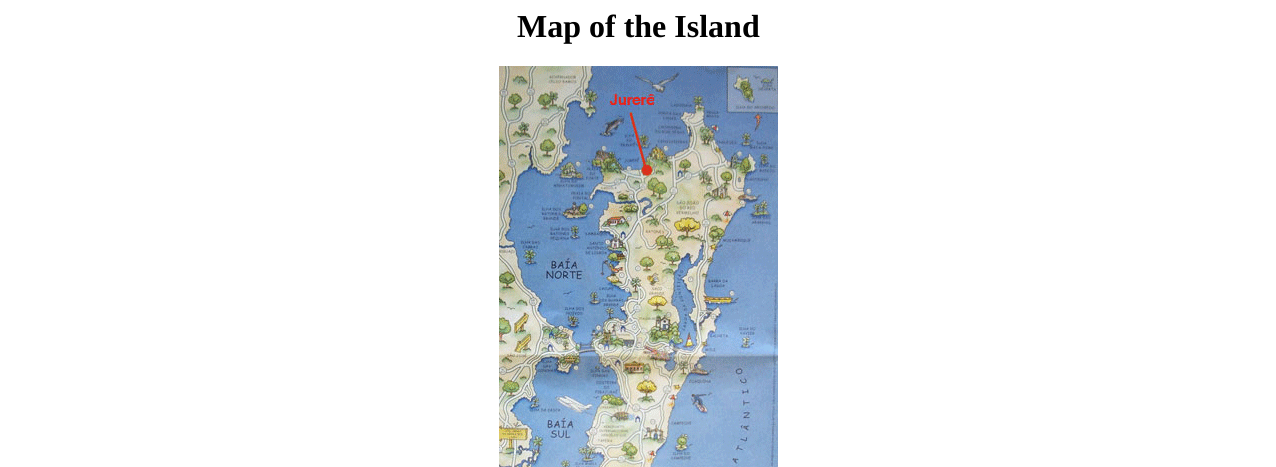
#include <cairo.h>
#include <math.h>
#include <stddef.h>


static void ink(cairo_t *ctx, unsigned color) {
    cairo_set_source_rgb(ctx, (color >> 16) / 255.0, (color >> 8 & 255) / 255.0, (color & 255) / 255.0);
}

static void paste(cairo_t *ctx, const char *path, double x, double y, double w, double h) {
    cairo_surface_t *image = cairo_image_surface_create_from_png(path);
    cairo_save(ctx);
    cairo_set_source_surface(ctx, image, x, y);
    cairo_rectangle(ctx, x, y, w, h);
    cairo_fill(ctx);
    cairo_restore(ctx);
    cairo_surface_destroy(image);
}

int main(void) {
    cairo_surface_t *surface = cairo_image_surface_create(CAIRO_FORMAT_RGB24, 1276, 467);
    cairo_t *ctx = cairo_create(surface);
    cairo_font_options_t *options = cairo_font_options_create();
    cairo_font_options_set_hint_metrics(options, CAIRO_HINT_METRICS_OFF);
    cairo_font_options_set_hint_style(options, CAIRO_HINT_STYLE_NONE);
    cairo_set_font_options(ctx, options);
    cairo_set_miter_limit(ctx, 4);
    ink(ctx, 0xFFFFFF);
    cairo_paint(ctx);
    cairo_select_font_face(ctx, "Liberation Serif", CAIRO_FONT_SLANT_NORMAL, CAIRO_FONT_WEIGHT_BOLD);
    cairo_set_font_size(ctx, 32);
    ink(ctx, 0x000000);
    cairo_move_to(ctx, 517, 37);
    cairo_show_text(ctx, "Map of the Island");
    paste(ctx, "media/1.png", 499, 66, 279, 401);
    cairo_surface_write_to_png(surface, "image.png");
    cairo_font_options_destroy(options);
    cairo_destroy(ctx);
    cairo_surface_destroy(surface);
    return 0;
}
